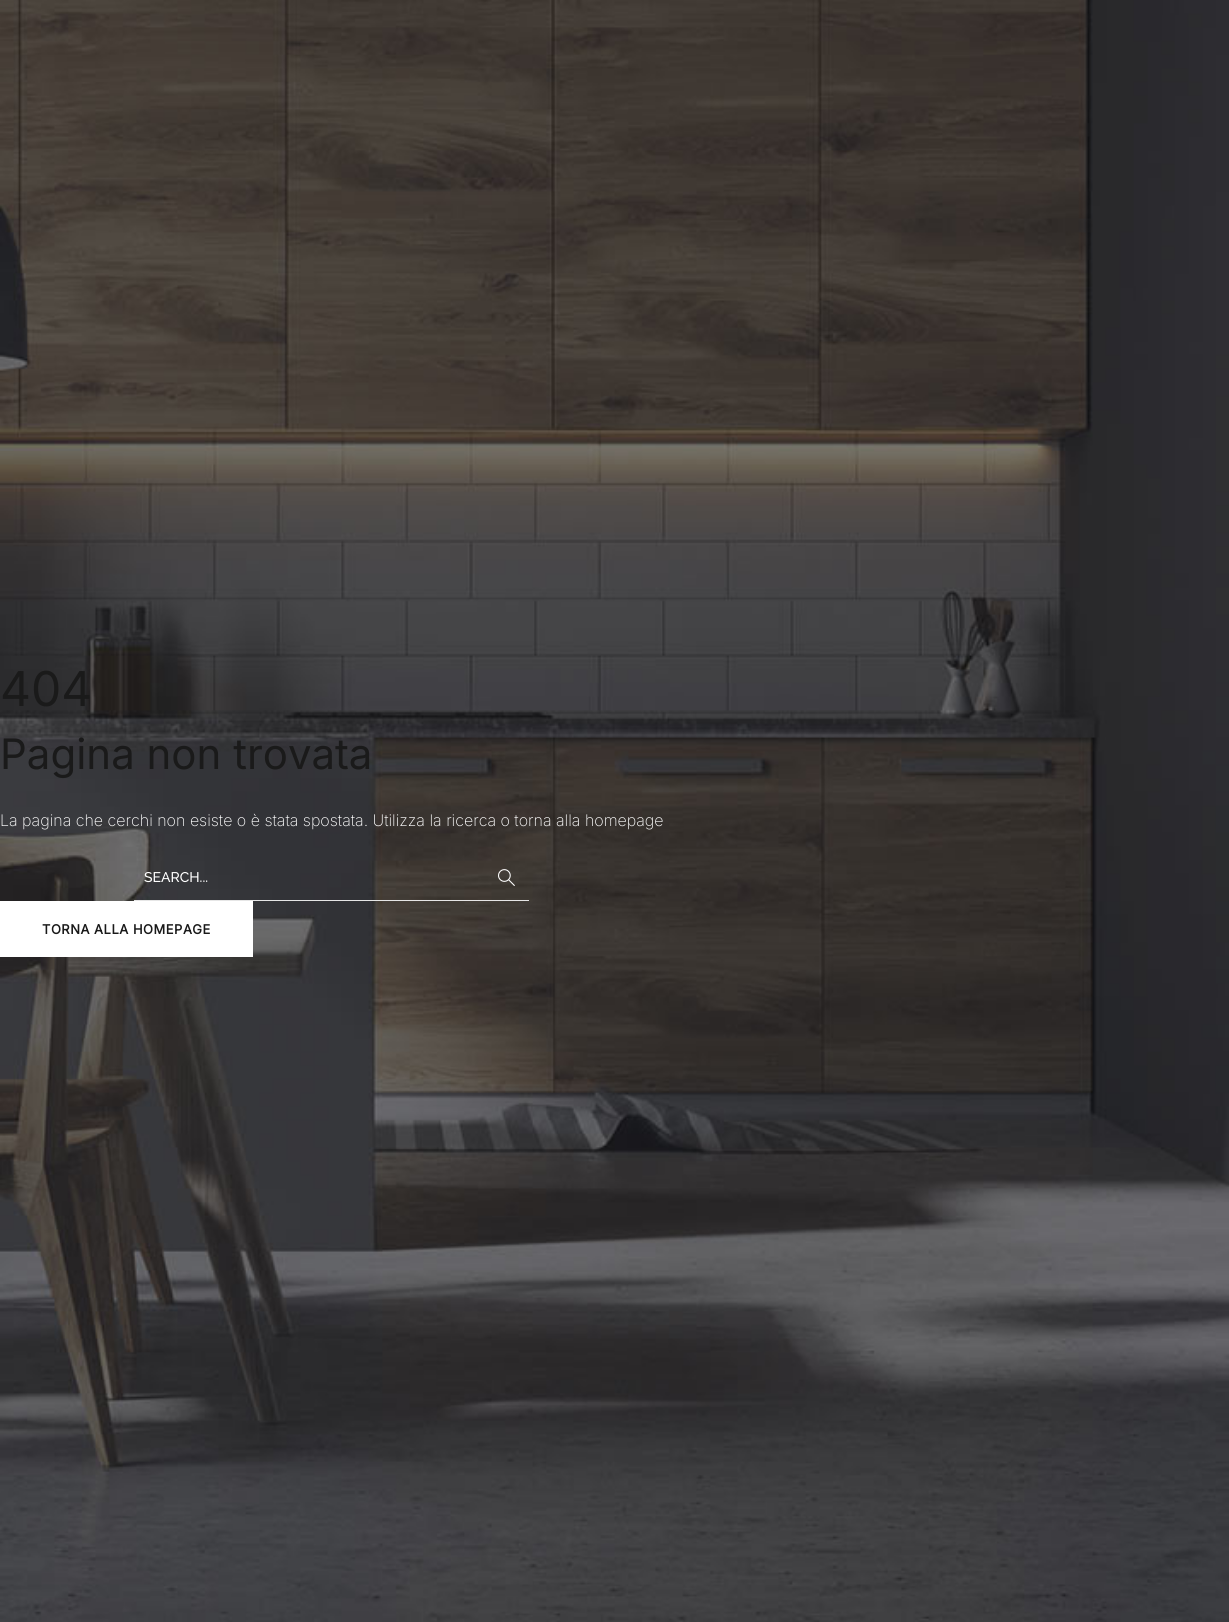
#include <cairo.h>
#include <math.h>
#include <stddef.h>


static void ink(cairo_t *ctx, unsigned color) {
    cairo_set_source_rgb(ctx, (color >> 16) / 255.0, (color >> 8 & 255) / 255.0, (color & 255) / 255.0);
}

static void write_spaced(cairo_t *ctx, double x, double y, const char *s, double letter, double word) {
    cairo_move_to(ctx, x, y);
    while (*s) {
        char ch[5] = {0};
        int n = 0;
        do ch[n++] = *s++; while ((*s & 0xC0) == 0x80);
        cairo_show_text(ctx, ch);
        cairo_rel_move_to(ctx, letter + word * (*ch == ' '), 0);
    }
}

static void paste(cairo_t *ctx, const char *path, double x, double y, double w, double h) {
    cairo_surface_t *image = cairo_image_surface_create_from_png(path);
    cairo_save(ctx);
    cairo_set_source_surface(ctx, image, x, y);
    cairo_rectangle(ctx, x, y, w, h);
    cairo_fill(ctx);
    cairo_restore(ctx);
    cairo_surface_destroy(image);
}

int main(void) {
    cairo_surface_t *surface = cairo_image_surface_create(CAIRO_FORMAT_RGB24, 1229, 1622);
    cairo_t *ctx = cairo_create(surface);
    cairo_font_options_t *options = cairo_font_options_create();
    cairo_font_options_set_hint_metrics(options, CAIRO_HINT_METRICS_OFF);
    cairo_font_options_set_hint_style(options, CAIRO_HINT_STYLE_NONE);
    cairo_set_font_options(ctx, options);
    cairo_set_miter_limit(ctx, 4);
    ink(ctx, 0xFFFFFF);
    cairo_paint(ctx);
    paste(ctx, "media/1.png", 0, 0, 1229, 1622);
    cairo_select_font_face(ctx, "Inter", CAIRO_FONT_SLANT_NORMAL, CAIRO_FONT_WEIGHT_NORMAL);
    cairo_set_font_size(ctx, 48);
    ink(ctx, 0x1A1A1A);
    cairo_move_to(ctx, 0, 706);
    cairo_show_text(ctx, "404");
    cairo_set_font_size(ctx, 42);
    cairo_move_to(ctx, 0, 769);
    cairo_show_text(ctx, "Pagina non trovata");
    cairo_select_font_face(ctx, "Inter ExtraLight", CAIRO_FONT_SLANT_NORMAL, CAIRO_FONT_WEIGHT_NORMAL);
    cairo_set_font_size(ctx, 16);
    ink(ctx, 0xFFFFFF);
    cairo_move_to(ctx, 0, 826);
    cairo_show_text(ctx, "La pagina che cerchi non esiste o è stata spostata. Utilizza la ricerca o torna alla homepage");
    ink(ctx, 0xE6E6E6);
    cairo_rectangle(ctx, 134, 900, 395, 1);
    cairo_fill(ctx);
    cairo_select_font_face(ctx, "Raleway Medium", CAIRO_FONT_SLANT_NORMAL, CAIRO_FONT_WEIGHT_NORMAL);
    cairo_set_font_size(ctx, 14);
    ink(ctx, 0xFFFFFF);
    cairo_move_to(ctx, 144, 882);
    cairo_show_text(ctx, "SEARCH...");
    paste(ctx, "media/2.png", 498, 869, 17, 17);
    cairo_rectangle(ctx, 0, 901, 253, 56);
    cairo_fill(ctx);
    cairo_select_font_face(ctx, "Inter", CAIRO_FONT_SLANT_NORMAL, CAIRO_FONT_WEIGHT_BOLD);
    cairo_set_font_size(ctx, 13);
    ink(ctx, 0x1A1A1A);
    write_spaced(ctx, 42, 934, "TORNA ALLA HOMEPAGE", 0.5, 0);
    cairo_surface_write_to_png(surface, "image.png");
    cairo_font_options_destroy(options);
    cairo_destroy(ctx);
    cairo_surface_destroy(surface);
    return 0;
}
